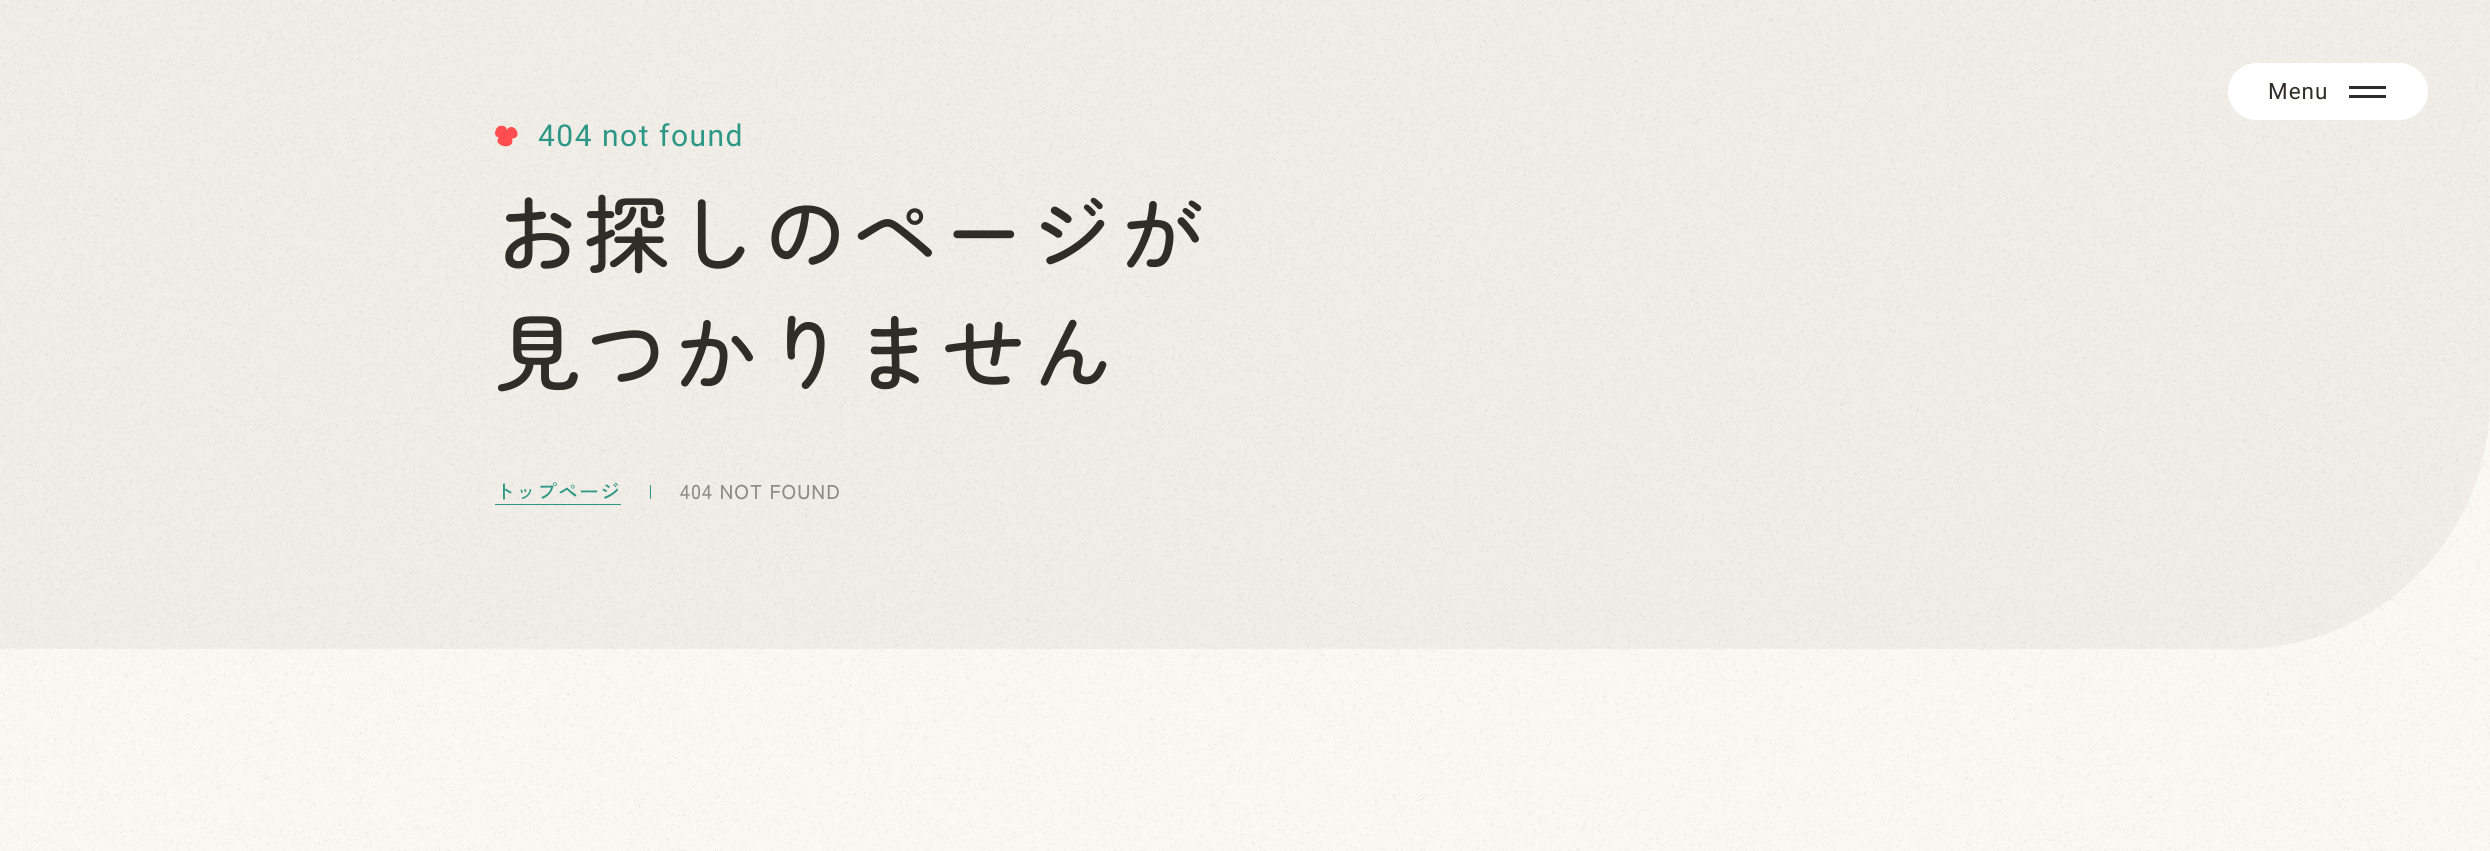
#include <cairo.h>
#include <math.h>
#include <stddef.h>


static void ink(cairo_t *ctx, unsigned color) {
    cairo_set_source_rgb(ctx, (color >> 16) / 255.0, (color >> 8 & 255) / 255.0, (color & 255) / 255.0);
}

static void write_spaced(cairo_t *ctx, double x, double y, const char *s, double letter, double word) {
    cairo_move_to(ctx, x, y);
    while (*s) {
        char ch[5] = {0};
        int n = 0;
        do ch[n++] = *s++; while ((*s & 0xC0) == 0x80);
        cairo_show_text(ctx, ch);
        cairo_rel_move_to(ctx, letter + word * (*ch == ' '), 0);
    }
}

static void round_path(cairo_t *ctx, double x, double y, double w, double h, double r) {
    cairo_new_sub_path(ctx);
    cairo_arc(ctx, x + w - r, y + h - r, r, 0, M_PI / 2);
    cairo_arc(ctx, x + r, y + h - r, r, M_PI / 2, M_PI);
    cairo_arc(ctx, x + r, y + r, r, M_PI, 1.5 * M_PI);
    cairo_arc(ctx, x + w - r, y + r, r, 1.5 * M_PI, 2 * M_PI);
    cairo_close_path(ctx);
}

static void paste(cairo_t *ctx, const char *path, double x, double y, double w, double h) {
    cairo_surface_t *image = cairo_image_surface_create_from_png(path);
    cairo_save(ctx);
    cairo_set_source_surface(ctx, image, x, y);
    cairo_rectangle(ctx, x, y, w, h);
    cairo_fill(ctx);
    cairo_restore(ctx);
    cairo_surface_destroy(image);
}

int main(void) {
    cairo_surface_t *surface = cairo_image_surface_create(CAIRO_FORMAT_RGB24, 2490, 851);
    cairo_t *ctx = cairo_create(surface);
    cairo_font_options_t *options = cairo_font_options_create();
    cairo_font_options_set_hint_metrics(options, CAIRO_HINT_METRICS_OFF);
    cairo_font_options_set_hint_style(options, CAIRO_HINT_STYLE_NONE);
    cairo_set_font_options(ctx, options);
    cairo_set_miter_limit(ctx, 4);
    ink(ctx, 0xF9F8F3);
    cairo_paint(ctx);
    paste(ctx, "media/1.png", 0, 399, 2490, 452);
    ink(ctx, 0xF0EEE6);
    cairo_new_path(ctx);
    cairo_move_to(ctx, 0, 0);
    cairo_line_to(ctx, 2490, 0);
    cairo_line_to(ctx, 2490, 399);
    cairo_curve_to(ctx, 2490, 537, 2378, 649, 2240, 649);
    cairo_line_to(ctx, 0, 649);
    cairo_close_path(ctx);
    cairo_fill(ctx);
    paste(ctx, "media/2.png", 0, 0, 2490, 649);
    ink(ctx, 0xFFFFFF);
    round_path(ctx, 2228, 63, 200, 57, 28.5);
    cairo_fill(ctx);
    cairo_select_font_face(ctx, "Roboto", CAIRO_FONT_SLANT_NORMAL, CAIRO_FONT_WEIGHT_NORMAL);
    cairo_set_font_size(ctx, 22.5);
    ink(ctx, 0x302C27);
    write_spaced(ctx, 2268, 99, "Menu", 1, 0);
    cairo_rectangle(ctx, 2349, 86, 37, 3);
    cairo_fill(ctx);
    cairo_rectangle(ctx, 2349, 95, 37, 3);
    cairo_fill(ctx);
    paste(ctx, "media/3.png", 495, 125, 23, 22);
    cairo_set_font_size(ctx, 30);
    ink(ctx, 0x2C9787);
    write_spaced(ctx, 538, 146, "404 not found", 1.5, 0);
    cairo_select_font_face(ctx, "Zen Maru Gothic Medium", CAIRO_FONT_SLANT_NORMAL, CAIRO_FONT_WEIGHT_NORMAL);
    cairo_set_font_size(ctx, 85);
    ink(ctx, 0x302C27);
    write_spaced(ctx, 495, 266, "お探しのページが", 4.25, 0);
    write_spaced(ctx, 495, 385, "見つかりません", 4.25, 0);
    cairo_select_font_face(ctx, "Zen Kaku Gothic New Medium", CAIRO_FONT_SLANT_NORMAL, CAIRO_FONT_WEIGHT_NORMAL);
    cairo_set_font_size(ctx, 20);
    ink(ctx, 0x2C9787);
    write_spaced(ctx, 495, 499, "トップページ", 1, 0);
    cairo_rectangle(ctx, 495, 504, 126, 1);
    cairo_fill(ctx);
    cairo_rectangle(ctx, 650, 485, 1, 14);
    cairo_fill(ctx);
    ink(ctx, 0x8F8C86);
    write_spaced(ctx, 680, 499, "404 NOT FOUND", 1, 0);
    cairo_surface_write_to_png(surface, "image.png");
    cairo_font_options_destroy(options);
    cairo_destroy(ctx);
    cairo_surface_destroy(surface);
    return 0;
}
